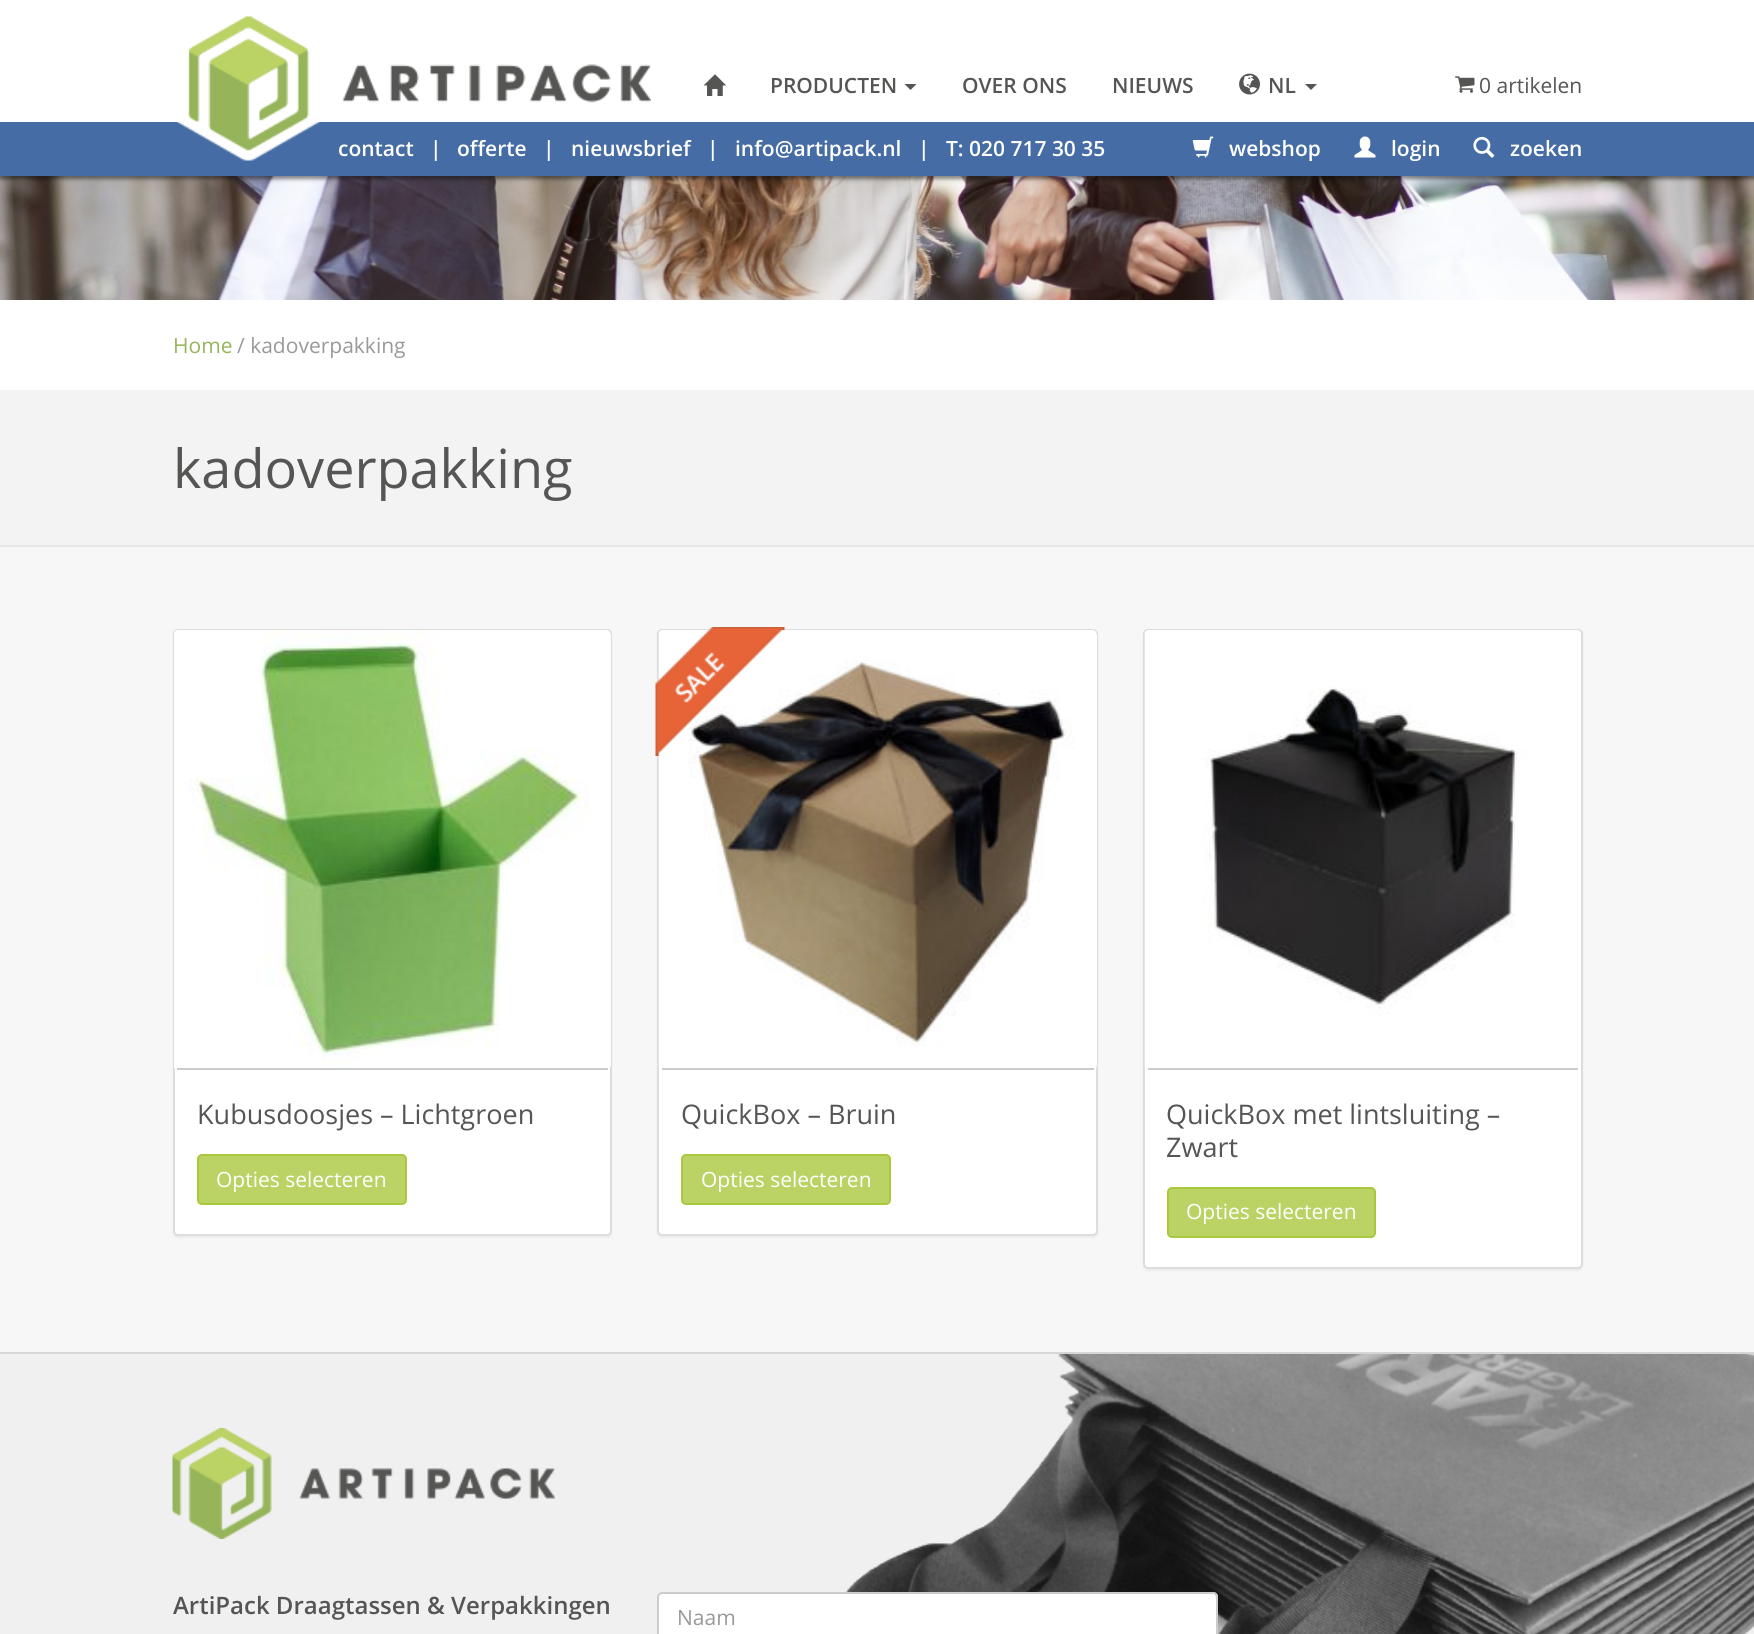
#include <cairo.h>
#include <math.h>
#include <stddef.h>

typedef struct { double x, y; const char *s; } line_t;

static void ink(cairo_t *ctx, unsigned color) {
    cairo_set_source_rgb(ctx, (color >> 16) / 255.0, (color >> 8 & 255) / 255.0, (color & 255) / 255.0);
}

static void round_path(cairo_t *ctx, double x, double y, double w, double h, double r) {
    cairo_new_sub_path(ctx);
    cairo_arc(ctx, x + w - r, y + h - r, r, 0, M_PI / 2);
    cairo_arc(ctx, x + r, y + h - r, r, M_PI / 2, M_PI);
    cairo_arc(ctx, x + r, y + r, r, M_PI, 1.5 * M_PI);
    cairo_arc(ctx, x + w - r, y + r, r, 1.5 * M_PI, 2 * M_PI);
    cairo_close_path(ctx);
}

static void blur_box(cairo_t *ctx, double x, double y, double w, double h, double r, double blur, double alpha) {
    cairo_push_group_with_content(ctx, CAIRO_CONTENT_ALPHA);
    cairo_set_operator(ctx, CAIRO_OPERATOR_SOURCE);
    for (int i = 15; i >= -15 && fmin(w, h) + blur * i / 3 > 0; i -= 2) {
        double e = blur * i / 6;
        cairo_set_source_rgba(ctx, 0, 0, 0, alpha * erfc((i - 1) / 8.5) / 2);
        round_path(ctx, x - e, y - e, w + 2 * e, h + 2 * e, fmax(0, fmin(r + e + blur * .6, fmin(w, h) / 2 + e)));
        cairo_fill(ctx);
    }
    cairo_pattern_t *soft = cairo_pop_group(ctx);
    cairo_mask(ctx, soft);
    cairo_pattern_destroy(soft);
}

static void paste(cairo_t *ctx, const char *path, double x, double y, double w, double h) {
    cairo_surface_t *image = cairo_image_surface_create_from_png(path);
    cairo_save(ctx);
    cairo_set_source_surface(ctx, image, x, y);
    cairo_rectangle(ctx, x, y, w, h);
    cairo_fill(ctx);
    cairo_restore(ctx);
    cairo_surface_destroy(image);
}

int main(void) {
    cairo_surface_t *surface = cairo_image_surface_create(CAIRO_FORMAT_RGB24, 1754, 1634);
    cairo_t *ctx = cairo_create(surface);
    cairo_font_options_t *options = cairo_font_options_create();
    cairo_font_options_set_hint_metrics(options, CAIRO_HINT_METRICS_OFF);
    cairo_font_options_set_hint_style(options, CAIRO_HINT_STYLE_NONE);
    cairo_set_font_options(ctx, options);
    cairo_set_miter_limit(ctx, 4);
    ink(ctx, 0xF3F3F3);
    cairo_paint(ctx);
    paste(ctx, "media/8.png", 0, 176, 1754, 124);
    ink(ctx, 0x0C0C0C);
    blur_box(ctx, 0, 3, 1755, 176, 0, 2, 0.49);
    ink(ctx, 0xFFFFFF);
    cairo_rectangle(ctx, 0, 0, 1754, 122);
    cairo_fill(ctx);
    ink(ctx, 0x456CA4);
    cairo_rectangle(ctx, 0, 122, 1754, 54);
    cairo_fill(ctx);
    paste(ctx, "media/1.png", 176, 16, 475, 145);
    paste(ctx, "media/2.png", 703, 74, 24, 22);
    cairo_select_font_face(ctx, "Open Sans SemiBold", CAIRO_FONT_SLANT_NORMAL, CAIRO_FONT_WEIGHT_NORMAL);
    cairo_set_font_size(ctx, 21);
    ink(ctx, 0x555554);
    cairo_move_to(ctx, 770, 93);
    cairo_show_text(ctx, "PRODUCTEN");
    cairo_new_path(ctx);
    cairo_move_to(ctx, 904.5, 84);
    cairo_line_to(ctx, 916.5, 84);
    cairo_line_to(ctx, 910.5, 90);
    cairo_close_path(ctx);
    cairo_fill(ctx);
    cairo_move_to(ctx, 962, 93);
    cairo_show_text(ctx, "OVER ONS");
    cairo_move_to(ctx, 1112, 93);
    cairo_show_text(ctx, "NIEUWS");
    paste(ctx, "media/3.png", 1239, 73, 21, 22);
    cairo_move_to(ctx, 1268, 93);
    cairo_show_text(ctx, "NL");
    cairo_new_path(ctx);
    cairo_move_to(ctx, 1305, 84);
    cairo_line_to(ctx, 1317, 84);
    cairo_line_to(ctx, 1311, 90);
    cairo_close_path(ctx);
    cairo_fill(ctx);
    paste(ctx, "media/4.png", 1455, 76, 20, 17);
    cairo_select_font_face(ctx, "Open Sans", CAIRO_FONT_SLANT_NORMAL, CAIRO_FONT_WEIGHT_NORMAL);
    cairo_move_to(ctx, 1479, 93);
    cairo_show_text(ctx, "0 artikelen");
    cairo_select_font_face(ctx, "Open Sans SemiBold", CAIRO_FONT_SLANT_NORMAL, CAIRO_FONT_WEIGHT_NORMAL);
    ink(ctx, 0xFFFFFF);
    {
        static const line_t items[] = {
            {338, 156, "contact"},
            {430, 156, "|"},
            {457, 156, "offerte"},
            {543, 156, "|"},
            {571, 156, "nieuwsbrief"},
            {707, 156, "|"},
            {735, 156, "info@artipack.nl"},
            {918, 156, "|   T: 020 717 30 35"},
        };
        for (size_t i = 0; i < sizeof items / sizeof *items; i++) {
            cairo_move_to(ctx, items[i].x, items[i].y);
            cairo_show_text(ctx, items[i].s);
        }
    }
    paste(ctx, "media/5.png", 1192, 136, 22, 22);
    cairo_move_to(ctx, 1229, 156);
    cairo_show_text(ctx, "webshop");
    paste(ctx, "media/6.png", 1354, 136, 22, 22);
    cairo_move_to(ctx, 1391, 156);
    cairo_show_text(ctx, "login");
    paste(ctx, "media/7.png", 1473, 136, 22, 22);
    cairo_move_to(ctx, 1510, 156);
    cairo_show_text(ctx, "zoeken");
    cairo_rectangle(ctx, 0, 300, 1754, 90);
    cairo_fill(ctx);
    cairo_select_font_face(ctx, "Open Sans", CAIRO_FONT_SLANT_NORMAL, CAIRO_FONT_WEIGHT_NORMAL);
    ink(ctx, 0x96B55B);
    cairo_move_to(ctx, 173, 353);
    cairo_show_text(ctx, "Home");
    ink(ctx, 0x999999);
    cairo_move_to(ctx, 237, 353);
    cairo_show_text(ctx, "/ kadoverpakking");
    cairo_set_font_size(ctx, 54);
    ink(ctx, 0x555554);
    cairo_move_to(ctx, 173, 488);
    cairo_show_text(ctx, "kadoverpakking");
    ink(ctx, 0xF7F7F7);
    cairo_rectangle(ctx, 0, 547, 1754, 805);
    cairo_fill(ctx);
    ink(ctx, 0xE6E6E6);
    cairo_rectangle(ctx, 0, 545, 1754, 2);
    cairo_fill(ctx);
    ink(ctx, 0x000000);
    blur_box(ctx, 173, 630, 439, 608, 5, 1, 0.05);
    ink(ctx, 0xFFFFFF);
    round_path(ctx, 174, 630, 437, 605, 4);
    cairo_fill_preserve(ctx);
    ink(ctx, 0xDDDDDD);
    cairo_stroke(ctx);
    ink(ctx, 0xFFFFFF);
    round_path(ctx, 174, 630, 437, 440, 6);
    cairo_fill(ctx);
    ink(ctx, 0xCACACA);
    cairo_rectangle(ctx, 177, 1068, 431, 2);
    cairo_fill(ctx);
    paste(ctx, "media/9.png", 174, 630, 437, 438);
    cairo_set_font_size(ctx, 27);
    ink(ctx, 0x555554);
    cairo_move_to(ctx, 197, 1124);
    cairo_show_text(ctx, "Kubusdoosjes – Lichtgroen");
    ink(ctx, 0xBBD365);
    round_path(ctx, 198, 1155, 208, 49, 4);
    cairo_fill_preserve(ctx);
    ink(ctx, 0xA9C83D);
    cairo_stroke(ctx);
    cairo_set_font_size(ctx, 21);
    ink(ctx, 0xFFFFFF);
    cairo_move_to(ctx, 216, 1187);
    cairo_show_text(ctx, "Opties selecteren");
    ink(ctx, 0x000000);
    blur_box(ctx, 657, 630, 441, 608, 5, 1, 0.05);
    ink(ctx, 0xFFFFFF);
    round_path(ctx, 658, 630, 439, 605, 4);
    cairo_fill_preserve(ctx);
    ink(ctx, 0xDDDDDD);
    cairo_stroke(ctx);
    ink(ctx, 0xFFFFFF);
    round_path(ctx, 659, 630, 438, 440, 6);
    cairo_fill(ctx);
    ink(ctx, 0xCACACA);
    cairo_rectangle(ctx, 662, 1068, 432, 2);
    cairo_fill(ctx);
    paste(ctx, "media/11.png", 658, 630, 439, 438);
    paste(ctx, "media/10.png", 655, 627, 143, 129);
    cairo_set_font_size(ctx, 27);
    ink(ctx, 0x555554);
    cairo_move_to(ctx, 681, 1124);
    cairo_show_text(ctx, "QuickBox – Bruin");
    ink(ctx, 0xBBD365);
    round_path(ctx, 682, 1155, 208, 49, 4);
    cairo_fill_preserve(ctx);
    ink(ctx, 0xA9C83D);
    cairo_stroke(ctx);
    cairo_set_font_size(ctx, 21);
    ink(ctx, 0xFFFFFF);
    cairo_move_to(ctx, 701, 1187);
    cairo_show_text(ctx, "Opties selecteren");
    ink(ctx, 0x000000);
    blur_box(ctx, 1143, 630, 440, 641, 5, 1, 0.05);
    ink(ctx, 0xFFFFFF);
    round_path(ctx, 1144, 630, 438, 638, 4);
    cairo_fill_preserve(ctx);
    ink(ctx, 0xDDDDDD);
    cairo_stroke(ctx);
    ink(ctx, 0xFFFFFF);
    round_path(ctx, 1145, 630, 436, 440, 6);
    cairo_fill(ctx);
    ink(ctx, 0xCACACA);
    cairo_rectangle(ctx, 1148, 1068, 430, 2);
    cairo_fill(ctx);
    paste(ctx, "media/12.png", 1144, 630, 437, 438);
    cairo_set_font_size(ctx, 27);
    ink(ctx, 0x555554);
    cairo_move_to(ctx, 1166, 1124);
    cairo_show_text(ctx, "QuickBox met lintsluiting –");
    cairo_move_to(ctx, 1166, 1157);
    cairo_show_text(ctx, "Zwart");
    ink(ctx, 0xBBD365);
    round_path(ctx, 1168, 1188, 207, 49, 4);
    cairo_fill_preserve(ctx);
    ink(ctx, 0xA9C83D);
    cairo_stroke(ctx);
    cairo_set_font_size(ctx, 21);
    ink(ctx, 0xFFFFFF);
    cairo_move_to(ctx, 1186, 1219);
    cairo_show_text(ctx, "Opties selecteren");
    ink(ctx, 0xF0F0F0);
    cairo_rectangle(ctx, 0, 1354, 1754, 280);
    cairo_fill(ctx);
    paste(ctx, "media/13.png", 845, 1354, 909, 280);
    ink(ctx, 0xD6D6D6);
    cairo_rectangle(ctx, 0, 1352, 1754, 2);
    cairo_fill(ctx);
    paste(ctx, "media/14.png", 172, 1428, 383, 111);
    cairo_select_font_face(ctx, "Open Sans SemiBold", CAIRO_FONT_SLANT_NORMAL, CAIRO_FONT_WEIGHT_NORMAL);
    cairo_set_font_size(ctx, 24);
    ink(ctx, 0x555554);
    cairo_move_to(ctx, 173, 1614);
    cairo_show_text(ctx, "ArtiPack Draagtassen & Verpakkingen");
    ink(ctx, 0xFFFFFF);
    round_path(ctx, 657, 1592, 561, 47, 5);
    cairo_fill(ctx);
    ink(ctx, 0xECECEC);
    cairo_new_path(ctx);
    cairo_move_to(ctx, 662, 1594);
    cairo_line_to(ctx, 1214, 1594);
    cairo_curve_to(ctx, 1217, 1594, 1216, 1611, 1216, 1612);
    cairo_line_to(ctx, 1216, 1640);
    cairo_curve_to(ctx, 1217, 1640, 1217, 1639, 1217, 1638);
    cairo_line_to(ctx, 1217, 1596);
    cairo_curve_to(ctx, 1217, 1594, 1216, 1593, 1214, 1593);
    cairo_line_to(ctx, 662, 1593);
    cairo_curve_to(ctx, 661, 1593, 659, 1594, 659, 1595);
    cairo_close_path(ctx);
    cairo_fill(ctx);
    round_path(ctx, 658, 1593, 559, 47, 4);
    ink(ctx, 0xCCCCCC);
    cairo_stroke(ctx);
    cairo_select_font_face(ctx, "Open Sans", CAIRO_FONT_SLANT_NORMAL, CAIRO_FONT_WEIGHT_NORMAL);
    cairo_set_font_size(ctx, 21);
    ink(ctx, 0x999999);
    cairo_move_to(ctx, 677, 1625);
    cairo_show_text(ctx, "Naam");
    cairo_surface_write_to_png(surface, "image.png");
    cairo_font_options_destroy(options);
    cairo_destroy(ctx);
    cairo_surface_destroy(surface);
    return 0;
}
